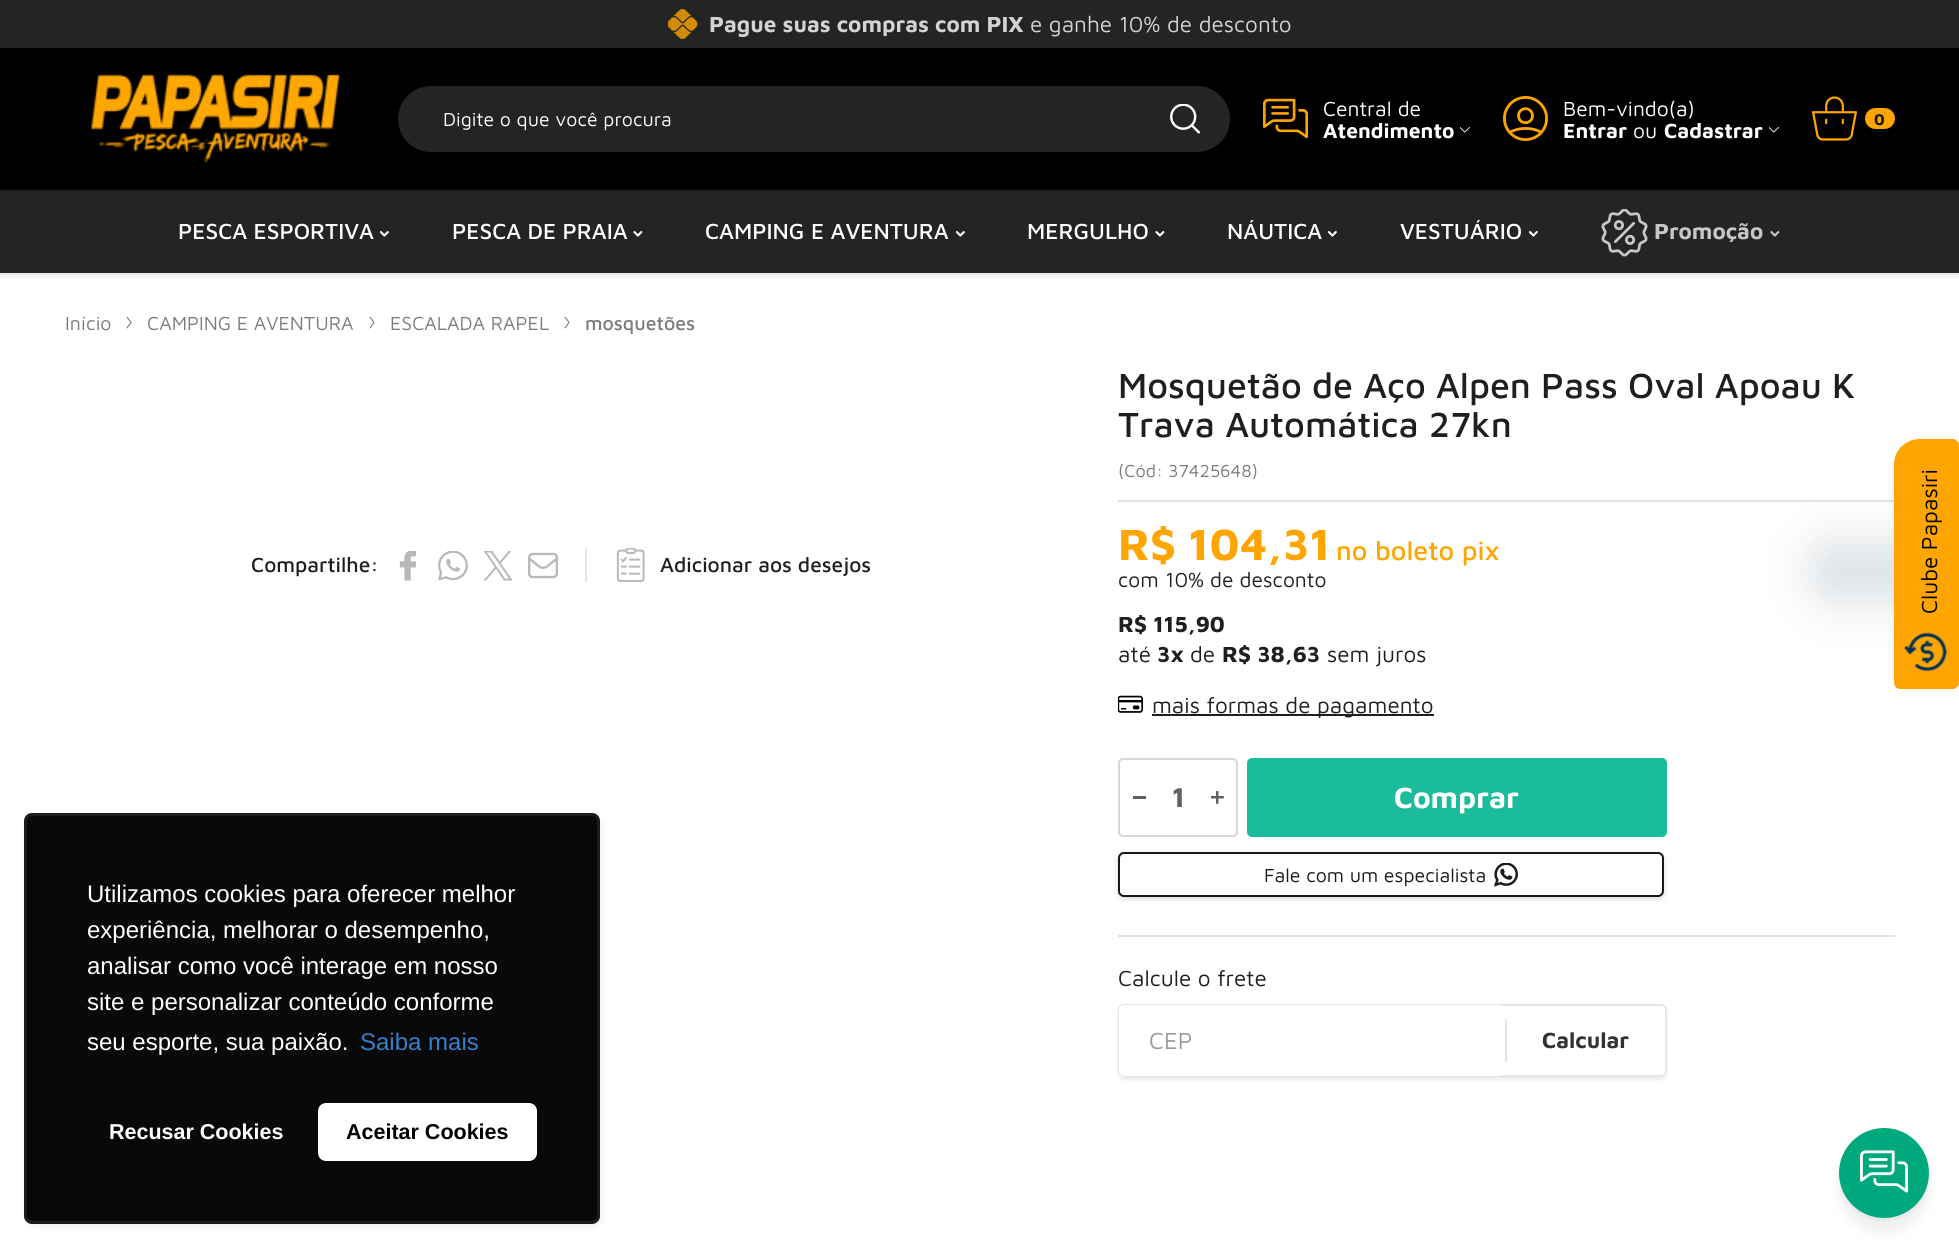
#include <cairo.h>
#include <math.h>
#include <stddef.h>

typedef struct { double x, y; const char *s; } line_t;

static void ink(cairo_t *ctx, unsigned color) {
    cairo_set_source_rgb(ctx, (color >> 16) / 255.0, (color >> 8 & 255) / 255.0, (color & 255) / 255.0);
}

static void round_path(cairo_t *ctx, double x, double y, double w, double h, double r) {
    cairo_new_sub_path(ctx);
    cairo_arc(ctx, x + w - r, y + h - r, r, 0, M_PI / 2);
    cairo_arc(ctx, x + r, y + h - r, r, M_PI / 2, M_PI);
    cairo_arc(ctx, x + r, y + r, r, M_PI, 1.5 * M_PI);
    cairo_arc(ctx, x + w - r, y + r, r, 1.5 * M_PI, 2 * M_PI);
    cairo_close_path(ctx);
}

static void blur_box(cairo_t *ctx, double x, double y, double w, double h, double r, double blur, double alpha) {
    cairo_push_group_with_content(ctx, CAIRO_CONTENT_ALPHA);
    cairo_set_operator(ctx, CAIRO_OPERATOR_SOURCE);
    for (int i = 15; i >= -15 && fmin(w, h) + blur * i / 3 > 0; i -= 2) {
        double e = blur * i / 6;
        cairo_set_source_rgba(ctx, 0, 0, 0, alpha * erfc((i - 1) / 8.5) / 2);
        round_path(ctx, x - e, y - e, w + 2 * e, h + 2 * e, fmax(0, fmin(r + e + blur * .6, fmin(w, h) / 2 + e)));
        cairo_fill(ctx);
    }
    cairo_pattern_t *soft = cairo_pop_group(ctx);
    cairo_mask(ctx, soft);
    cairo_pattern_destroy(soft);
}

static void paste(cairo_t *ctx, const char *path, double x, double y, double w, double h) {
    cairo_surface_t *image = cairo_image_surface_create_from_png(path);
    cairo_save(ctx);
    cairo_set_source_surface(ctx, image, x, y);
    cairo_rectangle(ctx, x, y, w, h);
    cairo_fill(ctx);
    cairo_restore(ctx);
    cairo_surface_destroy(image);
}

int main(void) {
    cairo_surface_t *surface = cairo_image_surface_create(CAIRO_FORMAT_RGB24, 1959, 1247);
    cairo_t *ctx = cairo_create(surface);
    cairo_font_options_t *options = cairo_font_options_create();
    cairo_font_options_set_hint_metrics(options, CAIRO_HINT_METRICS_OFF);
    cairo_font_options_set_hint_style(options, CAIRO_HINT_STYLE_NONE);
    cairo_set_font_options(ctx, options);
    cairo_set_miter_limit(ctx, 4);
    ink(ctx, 0xFFFFFF);
    cairo_paint(ctx);
    ink(ctx, 0x242424);
    cairo_rectangle(ctx, 0, 0, 1959, 48);
    cairo_fill(ctx);
    paste(ctx, "media/1.png", 668, 9, 30, 30);
    cairo_select_font_face(ctx, "Maven Pro", CAIRO_FONT_SLANT_NORMAL, CAIRO_FONT_WEIGHT_BOLD);
    cairo_set_font_size(ctx, 22.5);
    ink(ctx, 0xD3D3D3);
    cairo_move_to(ctx, 709, 32);
    cairo_show_text(ctx, "Pague suas compras com PIX");
    cairo_select_font_face(ctx, "Maven Pro", CAIRO_FONT_SLANT_NORMAL, CAIRO_FONT_WEIGHT_NORMAL);
    cairo_move_to(ctx, 1030, 32);
    cairo_show_text(ctx, "e ganhe 10% de desconto");
    ink(ctx, 0x525252);
    blur_box(ctx, 0, 192, 1959, 83, 0, 3, 0.2);
    ink(ctx, 0x000000);
    cairo_rectangle(ctx, 0, 48, 1959, 141);
    cairo_fill(ctx);
    ink(ctx, 0x131313);
    cairo_rectangle(ctx, 0, 189, 1959, 2);
    cairo_fill(ctx);
    paste(ctx, "media/2.png", 91, 74, 249, 89);
    ink(ctx, 0x242424);
    round_path(ctx, 398, 86, 832, 66, 33);
    cairo_fill(ctx);
    cairo_set_font_size(ctx, 19.5);
    ink(ctx, 0xFFFFFF);
    cairo_move_to(ctx, 443, 126);
    cairo_show_text(ctx, "Digite o que você procura");
    paste(ctx, "media/3.png", 1170, 104, 30, 30);
    paste(ctx, "media/4.png", 1263, 98, 45, 41);
    cairo_set_font_size(ctx, 21);
    cairo_move_to(ctx, 1323, 116);
    cairo_show_text(ctx, "Central de");
    cairo_select_font_face(ctx, "Maven Pro", CAIRO_FONT_SLANT_NORMAL, CAIRO_FONT_WEIGHT_BOLD);
    cairo_move_to(ctx, 1323, 138);
    cairo_show_text(ctx, "Atendimento");
    paste(ctx, "media/5.png", 1460, 127, 10, 6);
    paste(ctx, "media/6.png", 1503, 96, 45, 45);
    cairo_select_font_face(ctx, "Maven Pro", CAIRO_FONT_SLANT_NORMAL, CAIRO_FONT_WEIGHT_NORMAL);
    cairo_move_to(ctx, 1563, 116);
    cairo_show_text(ctx, "Bem-vindo(a)");
    cairo_select_font_face(ctx, "Maven Pro", CAIRO_FONT_SLANT_NORMAL, CAIRO_FONT_WEIGHT_BOLD);
    cairo_move_to(ctx, 1563, 138);
    cairo_show_text(ctx, "Entrar");
    cairo_select_font_face(ctx, "Maven Pro", CAIRO_FONT_SLANT_NORMAL, CAIRO_FONT_WEIGHT_NORMAL);
    cairo_move_to(ctx, 1633, 138);
    cairo_show_text(ctx, "ou");
    cairo_select_font_face(ctx, "Maven Pro", CAIRO_FONT_SLANT_NORMAL, CAIRO_FONT_WEIGHT_BOLD);
    cairo_move_to(ctx, 1664, 138);
    cairo_show_text(ctx, "Cadastrar");
    paste(ctx, "media/5.png", 1769, 127, 10, 6);
    paste(ctx, "media/7.png", 1812, 96, 45, 45);
    ink(ctx, 0xFFA500);
    round_path(ctx, 1865, 108, 30, 21, 10.5);
    cairo_fill(ctx);
    cairo_set_font_size(ctx, 16);
    ink(ctx, 0x181818);
    cairo_move_to(ctx, 1874, 125);
    cairo_show_text(ctx, "0");
    ink(ctx, 0x242424);
    cairo_rectangle(ctx, 0, 191, 1959, 82);
    cairo_fill(ctx);
    cairo_select_font_face(ctx, "Maven Pro Medium", CAIRO_FONT_SLANT_NORMAL, CAIRO_FONT_WEIGHT_NORMAL);
    cairo_set_font_size(ctx, 22.5);
    ink(ctx, 0xFFFFFF);
    cairo_move_to(ctx, 178, 239);
    cairo_show_text(ctx, "PESCA ESPORTIVA");
    paste(ctx, "media/8.png", 379, 231, 10, 6);
    cairo_move_to(ctx, 452, 239);
    cairo_show_text(ctx, "PESCA DE PRAIA");
    paste(ctx, "media/9.png", 633, 231, 10, 6);
    cairo_move_to(ctx, 705, 239);
    cairo_show_text(ctx, "CAMPING E AVENTURA");
    paste(ctx, "media/8.png", 955, 231, 10, 6);
    cairo_move_to(ctx, 1027, 239);
    cairo_show_text(ctx, "MERGULHO");
    paste(ctx, "media/9.png", 1155, 231, 10, 6);
    cairo_move_to(ctx, 1227, 239);
    cairo_show_text(ctx, "NÁUTICA");
    paste(ctx, "media/8.png", 1327, 231, 10, 6);
    cairo_move_to(ctx, 1400, 239);
    cairo_show_text(ctx, "VESTUÁRIO");
    paste(ctx, "media/8.png", 1528, 231, 10, 6);
    paste(ctx, "media/10.png", 1601, 209, 47, 48);
    cairo_select_font_face(ctx, "Maven Pro", CAIRO_FONT_SLANT_NORMAL, CAIRO_FONT_WEIGHT_BOLD);
    ink(ctx, 0xC7C7C7);
    cairo_move_to(ctx, 1654, 239);
    cairo_show_text(ctx, "Promoção");
    paste(ctx, "media/11.png", 1770, 231, 10, 6);
    cairo_select_font_face(ctx, "Maven Pro", CAIRO_FONT_SLANT_NORMAL, CAIRO_FONT_WEIGHT_NORMAL);
    cairo_set_font_size(ctx, 19.5);
    ink(ctx, 0x7B7B7B);
    cairo_move_to(ctx, 65, 330);
    cairo_show_text(ctx, "Início");
    paste(ctx, "media/12.png", 126, 317, 6, 12);
    cairo_move_to(ctx, 147, 330);
    cairo_show_text(ctx, "CAMPING E AVENTURA");
    paste(ctx, "media/12.png", 369, 317, 6, 12);
    cairo_move_to(ctx, 390, 330);
    cairo_show_text(ctx, "ESCALADA RAPEL");
    paste(ctx, "media/12.png", 564, 317, 6, 12);
    cairo_select_font_face(ctx, "Maven Pro Medium", CAIRO_FONT_SLANT_NORMAL, CAIRO_FONT_WEIGHT_NORMAL);
    cairo_move_to(ctx, 585, 330);
    cairo_show_text(ctx, "mosquetões");
    cairo_set_font_size(ctx, 21);
    ink(ctx, 0x201F1F);
    cairo_move_to(ctx, 251, 572);
    cairo_show_text(ctx, "Compartilhe:");
    paste(ctx, "media/13.png", 399, 551, 18, 30);
    paste(ctx, "media/14.png", 438, 551, 30, 30);
    paste(ctx, "media/15.png", 483, 551, 30, 30);
    paste(ctx, "media/16.png", 528, 552, 30, 27);
    ink(ctx, 0xE7E7E7);
    cairo_rectangle(ctx, 585, 548, 2, 34);
    cairo_fill(ctx);
    paste(ctx, "media/17.png", 616, 548, 29, 34);
    ink(ctx, 0x201F1F);
    cairo_move_to(ctx, 660, 572);
    cairo_show_text(ctx, "Adicionar aos desejos");
    ink(ctx, 0xE1E1E1);
    cairo_rectangle(ctx, 1118, 500, 777, 2);
    cairo_fill(ctx);
    cairo_set_font_size(ctx, 36);
    ink(ctx, 0x201F1F);
    cairo_move_to(ctx, 1118, 398);
    cairo_show_text(ctx, "Mosquetão de Aço Alpen Pass Oval Apoau K");
    cairo_move_to(ctx, 1118, 437);
    cairo_show_text(ctx, "Trava Automática 27kn");
    cairo_select_font_face(ctx, "Maven Pro", CAIRO_FONT_SLANT_NORMAL, CAIRO_FONT_WEIGHT_NORMAL);
    cairo_set_font_size(ctx, 18);
    ink(ctx, 0x7B7B7B);
    cairo_move_to(ctx, 1118, 477);
    cairo_show_text(ctx, "(Cód:");
    cairo_move_to(ctx, 1168, 477);
    cairo_show_text(ctx, "37425648)");
    cairo_select_font_face(ctx, "Maven Pro", CAIRO_FONT_SLANT_NORMAL, CAIRO_FONT_WEIGHT_BOLD);
    cairo_set_font_size(ctx, 45);
    ink(ctx, 0xFFA500);
    cairo_move_to(ctx, 1118, 560);
    cairo_show_text(ctx, "R$ 104,31");
    cairo_select_font_face(ctx, "Maven Pro Medium", CAIRO_FONT_SLANT_NORMAL, CAIRO_FONT_WEIGHT_NORMAL);
    cairo_set_font_size(ctx, 27);
    cairo_move_to(ctx, 1336, 560);
    cairo_show_text(ctx, "no boleto pix");
    cairo_select_font_face(ctx, "Maven Pro", CAIRO_FONT_SLANT_NORMAL, CAIRO_FONT_WEIGHT_NORMAL);
    cairo_set_font_size(ctx, 21);
    ink(ctx, 0x201F1F);
    cairo_move_to(ctx, 1118, 587);
    cairo_show_text(ctx, "com 10% de desconto");
    cairo_select_font_face(ctx, "Maven Pro", CAIRO_FONT_SLANT_NORMAL, CAIRO_FONT_WEIGHT_BOLD);
    cairo_set_font_size(ctx, 22.5);
    cairo_move_to(ctx, 1118, 632);
    cairo_show_text(ctx, "R$ 115,90");
    cairo_select_font_face(ctx, "Maven Pro", CAIRO_FONT_SLANT_NORMAL, CAIRO_FONT_WEIGHT_NORMAL);
    cairo_move_to(ctx, 1118, 662);
    cairo_show_text(ctx, "até");
    cairo_select_font_face(ctx, "Maven Pro", CAIRO_FONT_SLANT_NORMAL, CAIRO_FONT_WEIGHT_BOLD);
    cairo_move_to(ctx, 1157, 662);
    cairo_show_text(ctx, "3x");
    cairo_select_font_face(ctx, "Maven Pro", CAIRO_FONT_SLANT_NORMAL, CAIRO_FONT_WEIGHT_NORMAL);
    cairo_move_to(ctx, 1190, 662);
    cairo_show_text(ctx, "de");
    cairo_select_font_face(ctx, "Maven Pro", CAIRO_FONT_SLANT_NORMAL, CAIRO_FONT_WEIGHT_BOLD);
    cairo_move_to(ctx, 1222, 662);
    cairo_show_text(ctx, "R$ 38,63");
    cairo_select_font_face(ctx, "Maven Pro", CAIRO_FONT_SLANT_NORMAL, CAIRO_FONT_WEIGHT_NORMAL);
    cairo_move_to(ctx, 1327, 662);
    cairo_show_text(ctx, "sem juros");
    paste(ctx, "media/18.png", 1118, 695, 25, 18);
    cairo_rectangle(ctx, 1152, 714, 282, 2);
    cairo_fill(ctx);
    cairo_move_to(ctx, 1152, 713);
    cairo_show_text(ctx, "mais formas de pagamento");
    round_path(ctx, 1119, 759, 118, 77, 4);
    ink(ctx, 0xD8D8D8);
    cairo_stroke(ctx);
    ink(ctx, 0x616161);
    cairo_rectangle(ctx, 1133, 796, 13, 3);
    cairo_fill(ctx);
    cairo_select_font_face(ctx, "Maven Pro", CAIRO_FONT_SLANT_NORMAL, CAIRO_FONT_WEIGHT_BOLD);
    cairo_set_font_size(ctx, 28);
    cairo_move_to(ctx, 1172, 807);
    cairo_show_text(ctx, "1");
    paste(ctx, "media/19.png", 1211, 791, 13, 13);
    ink(ctx, 0x1ABC9C);
    round_path(ctx, 1247, 758, 420, 79, 5);
    cairo_fill(ctx);
    cairo_set_font_size(ctx, 30);
    ink(ctx, 0xFFFFFF);
    cairo_move_to(ctx, 1394, 808);
    cairo_show_text(ctx, "Comprar");
    ink(ctx, 0xB1B1B1);
    blur_box(ctx, 1118, 854, 546, 45, 6, 3, 0.46);
    ink(ctx, 0xFFFFFF);
    round_path(ctx, 1119, 853, 544, 43, 5);
    cairo_fill_preserve(ctx);
    ink(ctx, 0x181818);
    cairo_stroke(ctx);
    cairo_select_font_face(ctx, "Maven Pro", CAIRO_FONT_SLANT_NORMAL, CAIRO_FONT_WEIGHT_NORMAL);
    cairo_set_font_size(ctx, 19.5);
    cairo_move_to(ctx, 1264, 882);
    cairo_show_text(ctx, "Fale com um especialista");
    paste(ctx, "media/20.png", 1494, 863, 24, 24);
    ink(ctx, 0xE1E1E1);
    cairo_rectangle(ctx, 1118, 935, 777, 2);
    cairo_fill(ctx);
    cairo_set_font_size(ctx, 22.5);
    ink(ctx, 0x201F1F);
    cairo_move_to(ctx, 1118, 986);
    cairo_show_text(ctx, "Calcule o frete");
    cairo_save(ctx);
    cairo_set_fill_rule(ctx, CAIRO_FILL_RULE_EVEN_ODD);
    cairo_new_path(ctx);
    cairo_move_to(ctx, 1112, 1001);
    cairo_line_to(ctx, 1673, 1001);
    cairo_line_to(ctx, 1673, 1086);
    cairo_line_to(ctx, 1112, 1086);
    cairo_close_path(ctx);
    cairo_move_to(ctx, 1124, 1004);
    cairo_line_to(ctx, 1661, 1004);
    cairo_curve_to(ctx, 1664.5, 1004, 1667, 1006.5, 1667, 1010);
    cairo_line_to(ctx, 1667, 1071);
    cairo_curve_to(ctx, 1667, 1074.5, 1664.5, 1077, 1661, 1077);
    cairo_line_to(ctx, 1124, 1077);
    cairo_curve_to(ctx, 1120.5, 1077, 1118, 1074.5, 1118, 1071);
    cairo_line_to(ctx, 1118, 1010);
    cairo_curve_to(ctx, 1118, 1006.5, 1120.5, 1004, 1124, 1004);
    cairo_close_path(ctx);
    cairo_clip(ctx);
    ink(ctx, 0xCDCDCD);
    blur_box(ctx, 1118, 1007, 549, 73, 6, 1.5, 0.35);
    cairo_restore(ctx);
    round_path(ctx, 1119, 1005, 547, 71, 5);
    ink(ctx, 0xE5E5E5);
    cairo_stroke(ctx);
    ink(ctx, 0xFFFFFF);
    round_path(ctx, 1119, 1005, 386, 71, 5);
    cairo_fill(ctx);
    cairo_set_font_size(ctx, 24);
    ink(ctx, 0x999999);
    cairo_move_to(ctx, 1149, 1049);
    cairo_show_text(ctx, "CEP");
    ink(ctx, 0xE5E5E5);
    cairo_rectangle(ctx, 1505, 1019, 2, 43);
    cairo_fill(ctx);
    cairo_select_font_face(ctx, "Maven Pro", CAIRO_FONT_SLANT_NORMAL, CAIRO_FONT_WEIGHT_BOLD);
    cairo_set_font_size(ctx, 22.5);
    ink(ctx, 0x333333);
    cairo_move_to(ctx, 1542, 1048);
    cairo_show_text(ctx, "Calcular");
    ink(ctx, 0xDEE2E6);
    blur_box(ctx, 1811, 540, 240, 62, 24, 22.5, 1);
    ink(ctx, 0xFFA500);
    cairo_new_path(ctx);
    cairo_move_to(ctx, 1894, 683);
    cairo_line_to(ctx, 1894, 464);
    cairo_curve_to(ctx, 1894, 450, 1906, 439, 1920, 439);
    cairo_line_to(ctx, 1953, 439);
    cairo_curve_to(ctx, 1956, 439, 1959, 442, 1959, 445);
    cairo_line_to(ctx, 1959, 683);
    cairo_curve_to(ctx, 1959, 686, 1956, 689, 1953, 689);
    cairo_line_to(ctx, 1900, 689);
    cairo_curve_to(ctx, 1897, 689, 1894, 686, 1894, 683);
    cairo_close_path(ctx);
    cairo_fill(ctx);
    cairo_select_font_face(ctx, "Maven Pro", CAIRO_FONT_SLANT_NORMAL, CAIRO_FONT_WEIGHT_NORMAL);
    ink(ctx, 0x000000);
    cairo_save(ctx);
    cairo_translate(ctx, 1937, 614);
    cairo_rotate(ctx, -90 * M_PI / 180);
    cairo_move_to(ctx, 0, 0);
    cairo_show_text(ctx, "Clube Papasiri");
    cairo_restore(ctx);
    paste(ctx, "media/21.png", 1904, 632, 43, 40);
    ink(ctx, 0x636E7C);
    blur_box(ctx, 26, 816, 576, 411, 8, 3, 0.1);
    ink(ctx, 0x090909);
    round_path(ctx, 24, 813, 576, 411, 8);
    cairo_fill(ctx);
    round_path(ctx, 25.5, 814.5, 573, 408, 6.5);
    cairo_set_source_rgba(ctx, 0.388, 0.431, 0.486, 0.2);
    cairo_set_line_width(ctx, 3);
    cairo_stroke(ctx);
    cairo_select_font_face(ctx, "Liberation Sans", CAIRO_FONT_SLANT_NORMAL, CAIRO_FONT_WEIGHT_NORMAL);
    cairo_set_font_size(ctx, 24);
    ink(ctx, 0xFFFFFF);
    {
        static const line_t items[] = {
            {87, 902, "Utilizamos cookies para oferecer melhor"},
            {87, 938, "experiência, melhorar o desempenho,"},
            {87, 974, "analisar como você interage em nosso"},
            {87, 1010, "site e personalizar conteúdo conforme"},
            {87, 1050, "seu esporte, sua paixão."},
        };
        for (size_t i = 0; i < sizeof items / sizeof *items; i++) {
            cairo_move_to(ctx, items[i].x, items[i].y);
            cairo_show_text(ctx, items[i].s);
        }
    }
    ink(ctx, 0x357FCE);
    cairo_move_to(ctx, 360, 1050);
    cairo_show_text(ctx, "Saiba mais");
    cairo_select_font_face(ctx, "Liberation Sans", CAIRO_FONT_SLANT_NORMAL, CAIRO_FONT_WEIGHT_BOLD);
    cairo_set_font_size(ctx, 21.5);
    ink(ctx, 0xFFFFFF);
    cairo_move_to(ctx, 109, 1139);
    cairo_show_text(ctx, "Recusar Cookies");
    round_path(ctx, 318, 1103, 219, 58, 8);
    cairo_fill(ctx);
    ink(ctx, 0x000000);
    cairo_move_to(ctx, 346, 1139);
    cairo_show_text(ctx, "Aceitar Cookies");
    ink(ctx, 0x676767);
    blur_box(ctx, 1839, 1143, 90, 90, 45, 6, 0.1);
    ink(ctx, 0x000000);
    blur_box(ctx, 1839, 1131, 90, 90, 45, 1, 0.04);
    ink(ctx, 0x00A97D);
    cairo_arc(ctx, 1884, 1173, 45, 0, 2 * M_PI);
    cairo_fill(ctx);
    paste(ctx, "media/22.png", 1860, 1150, 48, 43);
    cairo_surface_write_to_png(surface, "image.png");
    cairo_font_options_destroy(options);
    cairo_destroy(ctx);
    cairo_surface_destroy(surface);
    return 0;
}
